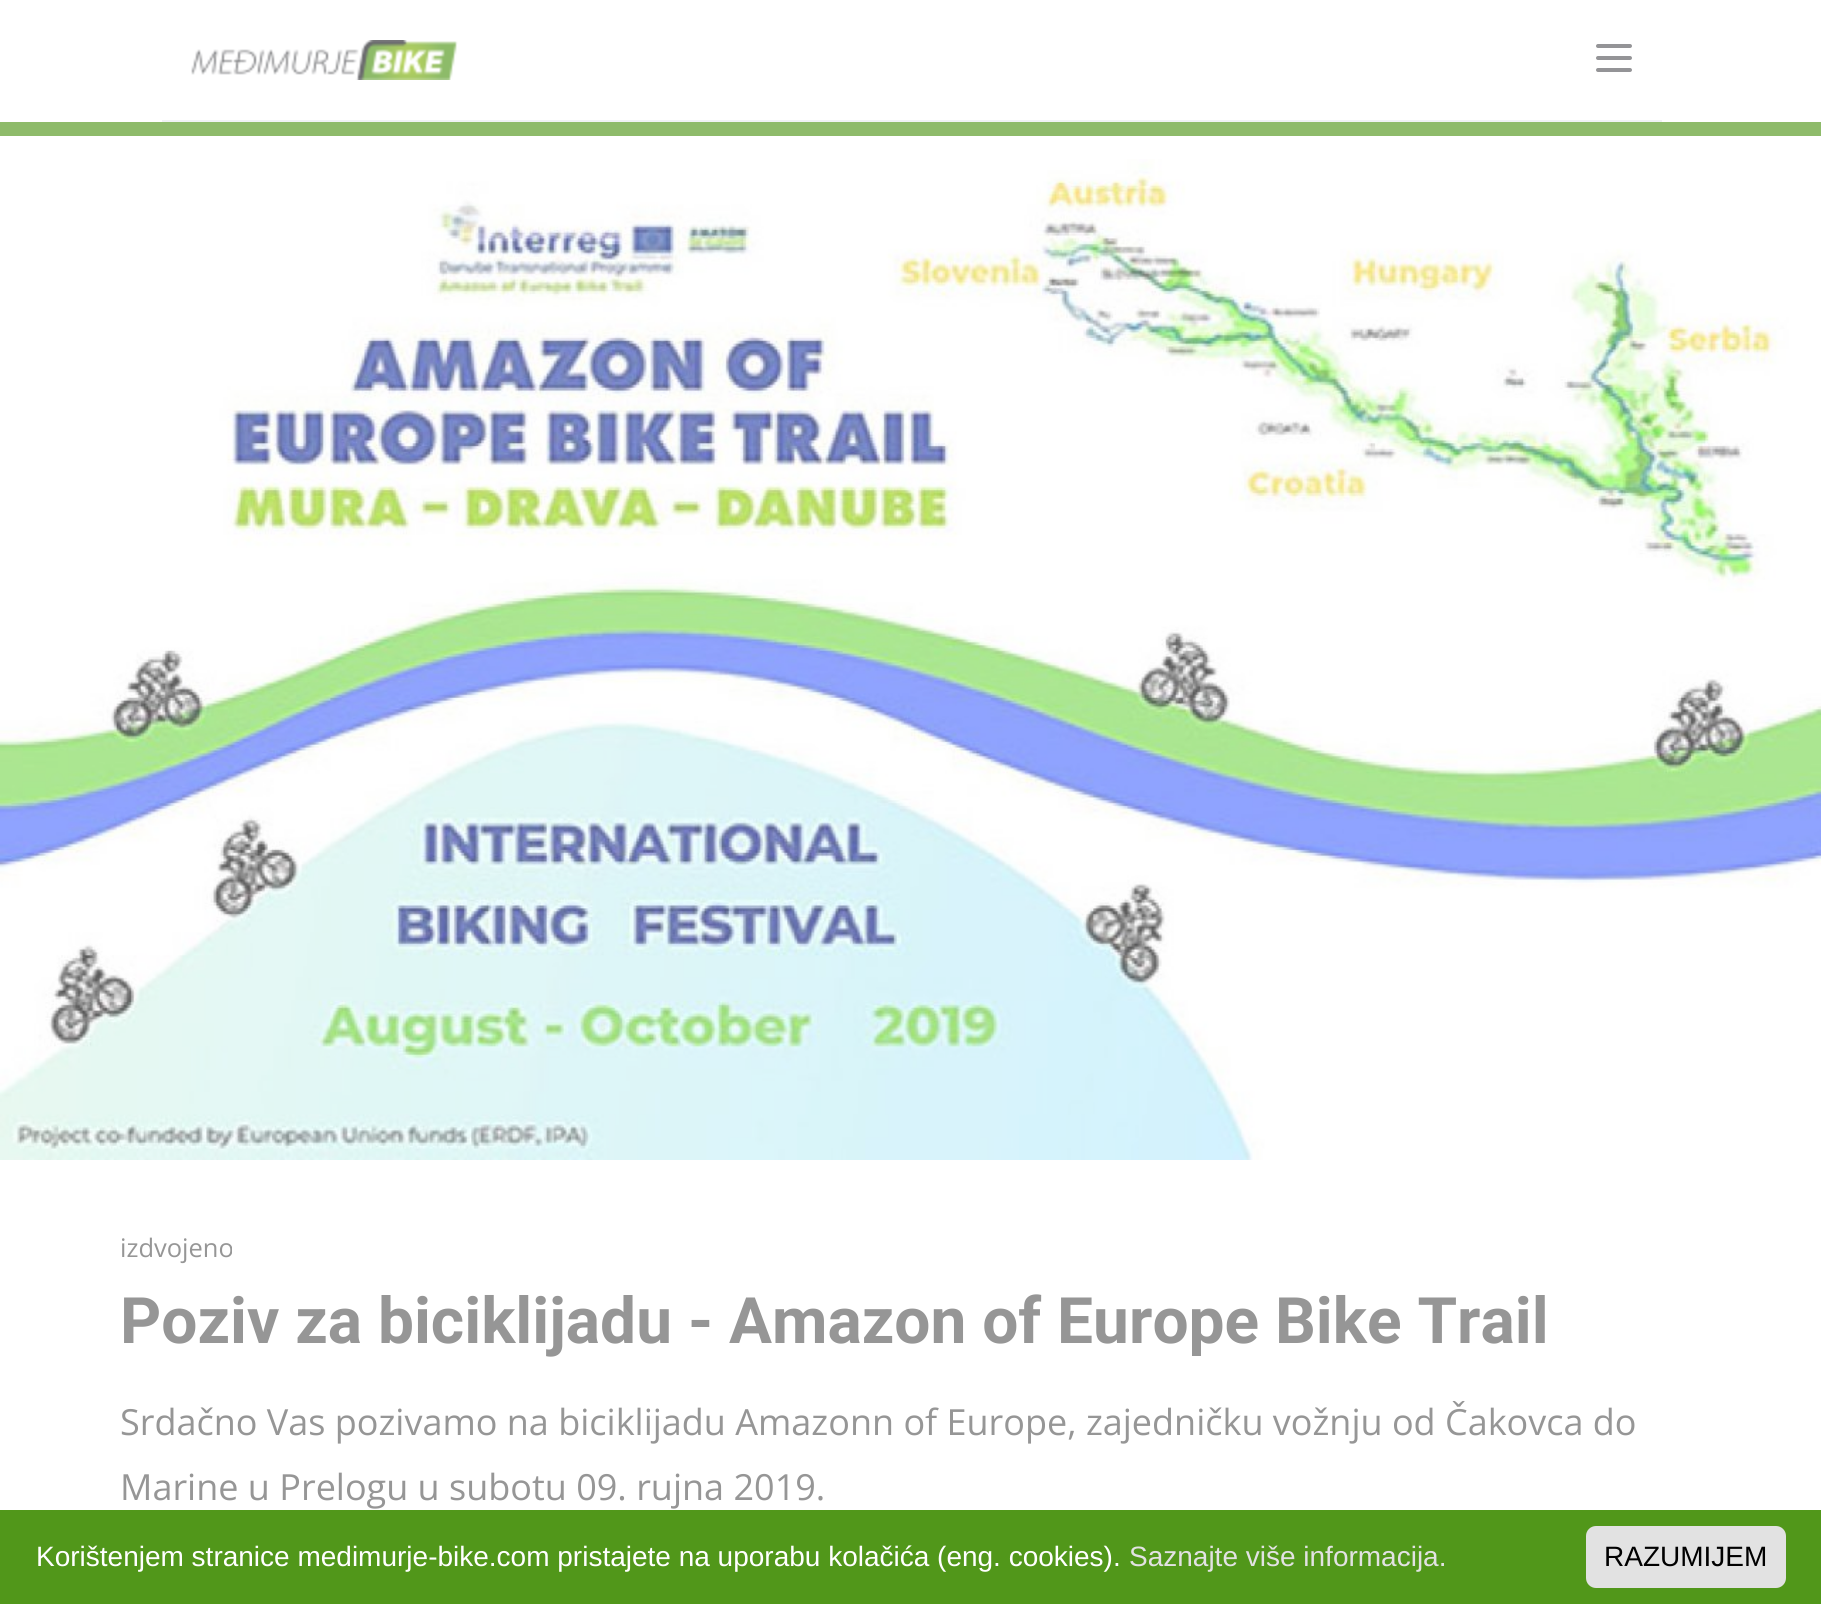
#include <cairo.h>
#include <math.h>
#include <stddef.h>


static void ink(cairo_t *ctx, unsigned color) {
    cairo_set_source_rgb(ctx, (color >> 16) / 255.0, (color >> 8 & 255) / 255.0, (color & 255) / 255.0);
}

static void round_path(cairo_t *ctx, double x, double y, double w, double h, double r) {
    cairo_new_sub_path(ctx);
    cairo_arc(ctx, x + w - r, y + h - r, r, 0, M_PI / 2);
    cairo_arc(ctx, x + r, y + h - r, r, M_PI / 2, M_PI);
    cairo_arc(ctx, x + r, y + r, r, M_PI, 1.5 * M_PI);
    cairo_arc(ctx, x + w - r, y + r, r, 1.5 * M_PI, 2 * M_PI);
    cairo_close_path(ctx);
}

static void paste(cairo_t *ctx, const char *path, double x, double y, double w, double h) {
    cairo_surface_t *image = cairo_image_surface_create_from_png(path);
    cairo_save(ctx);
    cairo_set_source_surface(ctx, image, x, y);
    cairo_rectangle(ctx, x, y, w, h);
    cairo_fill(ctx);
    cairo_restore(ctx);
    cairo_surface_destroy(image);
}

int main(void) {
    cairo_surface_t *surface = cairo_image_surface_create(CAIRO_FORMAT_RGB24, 1821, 1604);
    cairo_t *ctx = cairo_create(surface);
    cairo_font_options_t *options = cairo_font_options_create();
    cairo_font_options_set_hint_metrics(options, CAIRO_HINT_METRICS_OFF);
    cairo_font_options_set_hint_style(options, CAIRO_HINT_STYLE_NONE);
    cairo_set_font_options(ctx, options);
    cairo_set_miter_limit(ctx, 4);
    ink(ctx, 0xFFFFFF);
    cairo_paint(ctx);
    ink(ctx, 0x8EBB6A);
    cairo_rectangle(ctx, 0, 122, 1821, 14);
    cairo_fill(ctx);
    paste(ctx, "media/1.png", 191, 40, 267, 40);
    ink(ctx, 0x949497);
    round_path(ctx, 1596, 44, 36, 4, 2);
    cairo_fill(ctx);
    round_path(ctx, 1596, 56, 36, 4, 2);
    cairo_fill(ctx);
    round_path(ctx, 1596, 68, 36, 4, 2);
    cairo_fill(ctx);
    ink(ctx, 0xF0F2F4);
    cairo_rectangle(ctx, 162, 120, 1500, 2);
    cairo_fill(ctx);
    paste(ctx, "media/2.png", 0, 159, 1821, 1001);
    cairo_select_font_face(ctx, "Open Sans", CAIRO_FONT_SLANT_NORMAL, CAIRO_FONT_WEIGHT_NORMAL);
    cairo_set_font_size(ctx, 25.5);
    ink(ctx, 0x969696);
    cairo_move_to(ctx, 120, 1257);
    cairo_show_text(ctx, "izdvojeno");
    cairo_select_font_face(ctx, "Roboto", CAIRO_FONT_SLANT_NORMAL, CAIRO_FONT_WEIGHT_BOLD);
    cairo_set_font_size(ctx, 64);
    cairo_move_to(ctx, 120, 1343);
    cairo_show_text(ctx, "Poziv za biciklijadu - Amazon of Europe Bike Trail");
    cairo_select_font_face(ctx, "Open Sans", CAIRO_FONT_SLANT_NORMAL, CAIRO_FONT_WEIGHT_NORMAL);
    cairo_set_font_size(ctx, 36);
    cairo_move_to(ctx, 120, 1435);
    cairo_show_text(ctx, "Srdačno Vas pozivamo na biciklijadu Amazonn of Europe, zajedničku vožnju od Čakovca do");
    cairo_move_to(ctx, 120, 1500);
    cairo_show_text(ctx, "Marine u Prelogu u subotu 09. rujna 2019.");
    ink(ctx, 0x51971A);
    cairo_rectangle(ctx, 0, 1510, 1821, 94);
    cairo_fill(ctx);
    cairo_select_font_face(ctx, "Liberation Sans", CAIRO_FONT_SLANT_NORMAL, CAIRO_FONT_WEIGHT_NORMAL);
    cairo_set_font_size(ctx, 28);
    ink(ctx, 0xFFFFFF);
    cairo_move_to(ctx, 36, 1566);
    cairo_show_text(ctx, "Korištenjem stranice medimurje-bike.com pristajete na uporabu kolačića (eng. cookies).");
    ink(ctx, 0xE2E2E2);
    cairo_move_to(ctx, 1129, 1566);
    cairo_show_text(ctx, "Saznajte više informacija.");
    round_path(ctx, 1586, 1526, 200, 62, 10);
    cairo_fill(ctx);
    ink(ctx, 0x000000);
    cairo_move_to(ctx, 1604, 1566);
    cairo_show_text(ctx, "RAZUMIJEM");
    cairo_surface_write_to_png(surface, "image.png");
    cairo_font_options_destroy(options);
    cairo_destroy(ctx);
    cairo_surface_destroy(surface);
    return 0;
}
